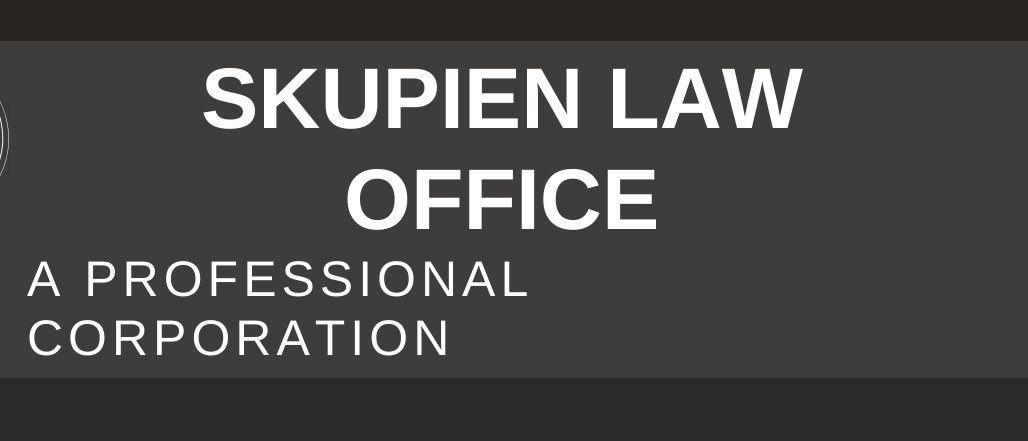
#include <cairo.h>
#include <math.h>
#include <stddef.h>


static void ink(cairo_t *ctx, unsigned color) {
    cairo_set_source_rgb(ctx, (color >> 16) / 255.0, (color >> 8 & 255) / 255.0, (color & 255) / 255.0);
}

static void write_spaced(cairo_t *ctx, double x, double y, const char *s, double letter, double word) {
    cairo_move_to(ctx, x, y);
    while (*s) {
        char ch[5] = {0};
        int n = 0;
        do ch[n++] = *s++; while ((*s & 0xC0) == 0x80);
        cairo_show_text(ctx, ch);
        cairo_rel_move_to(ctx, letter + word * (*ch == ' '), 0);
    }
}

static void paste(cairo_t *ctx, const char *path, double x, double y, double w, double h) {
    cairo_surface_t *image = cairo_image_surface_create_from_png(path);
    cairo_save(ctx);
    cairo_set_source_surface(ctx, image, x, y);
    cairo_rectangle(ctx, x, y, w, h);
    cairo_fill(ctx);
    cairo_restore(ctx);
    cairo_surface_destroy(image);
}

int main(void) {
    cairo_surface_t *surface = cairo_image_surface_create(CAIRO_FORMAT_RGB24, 1028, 441);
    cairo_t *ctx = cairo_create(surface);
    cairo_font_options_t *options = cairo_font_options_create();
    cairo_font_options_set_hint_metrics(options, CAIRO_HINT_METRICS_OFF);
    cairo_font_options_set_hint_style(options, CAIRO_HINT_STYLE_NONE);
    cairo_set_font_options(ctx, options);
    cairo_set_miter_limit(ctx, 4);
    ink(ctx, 0x2A2A2A);
    cairo_paint(ctx);
    ink(ctx, 0x3E3D3C);
    cairo_rectangle(ctx, 0, 41, 1028, 337);
    cairo_fill(ctx);
    ink(ctx, 0x2A2421);
    cairo_rectangle(ctx, 0, 0, 1028, 41);
    cairo_fill(ctx);
    paste(ctx, "media/1.png", 0, 101, 9, 75);
    cairo_select_font_face(ctx, "Liberation Sans", CAIRO_FONT_SLANT_NORMAL, CAIRO_FONT_WEIGHT_BOLD);
    cairo_set_font_size(ctx, 86);
    ink(ctx, 0xFFFFFF);
    cairo_move_to(ctx, 201, 128);
    cairo_show_text(ctx, "SKUPIEN LAW");
    cairo_move_to(ctx, 344, 229);
    cairo_show_text(ctx, "OFFICE");
    cairo_select_font_face(ctx, "Liberation Sans", CAIRO_FONT_SLANT_NORMAL, CAIRO_FONT_WEIGHT_NORMAL);
    cairo_set_font_size(ctx, 50);
    write_spaced(ctx, 27, 296, "A PROFESSIONAL", 5, 0);
    write_spaced(ctx, 27, 355, "CORPORATION", 5, 0);
    cairo_surface_write_to_png(surface, "image.png");
    cairo_font_options_destroy(options);
    cairo_destroy(ctx);
    cairo_surface_destroy(surface);
    return 0;
}
